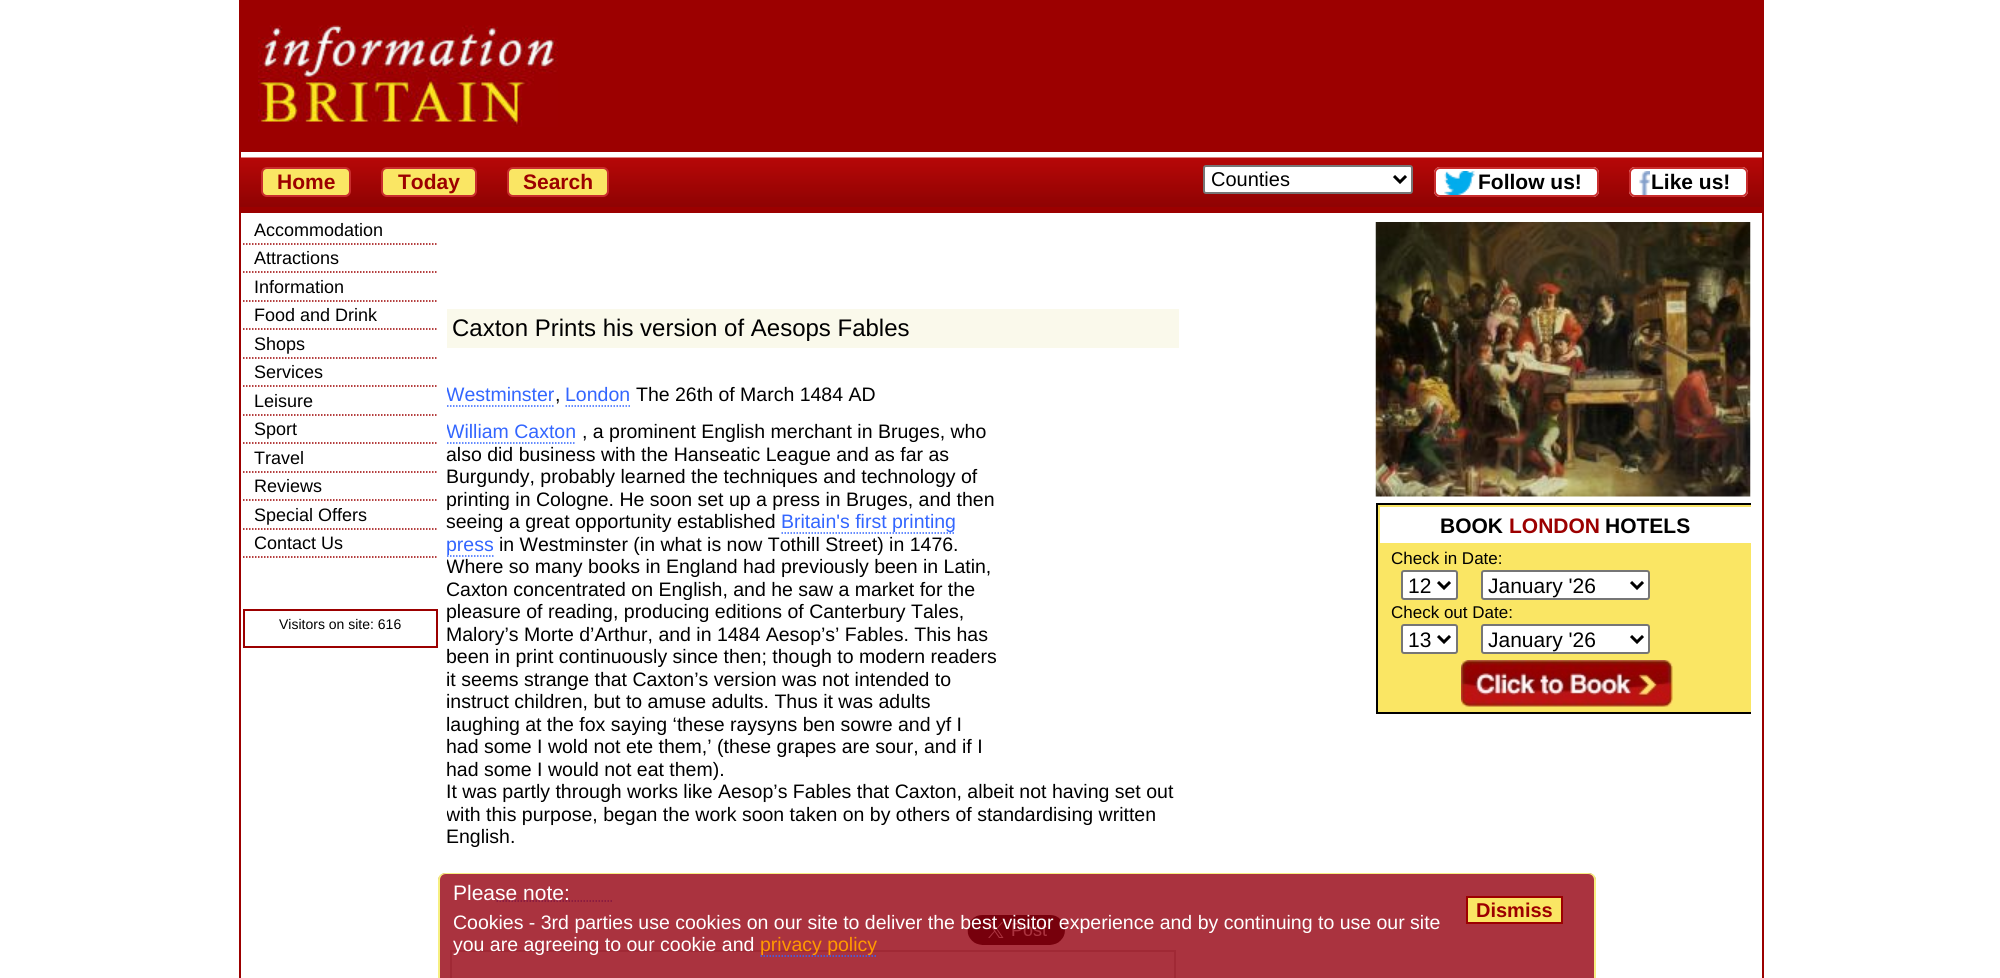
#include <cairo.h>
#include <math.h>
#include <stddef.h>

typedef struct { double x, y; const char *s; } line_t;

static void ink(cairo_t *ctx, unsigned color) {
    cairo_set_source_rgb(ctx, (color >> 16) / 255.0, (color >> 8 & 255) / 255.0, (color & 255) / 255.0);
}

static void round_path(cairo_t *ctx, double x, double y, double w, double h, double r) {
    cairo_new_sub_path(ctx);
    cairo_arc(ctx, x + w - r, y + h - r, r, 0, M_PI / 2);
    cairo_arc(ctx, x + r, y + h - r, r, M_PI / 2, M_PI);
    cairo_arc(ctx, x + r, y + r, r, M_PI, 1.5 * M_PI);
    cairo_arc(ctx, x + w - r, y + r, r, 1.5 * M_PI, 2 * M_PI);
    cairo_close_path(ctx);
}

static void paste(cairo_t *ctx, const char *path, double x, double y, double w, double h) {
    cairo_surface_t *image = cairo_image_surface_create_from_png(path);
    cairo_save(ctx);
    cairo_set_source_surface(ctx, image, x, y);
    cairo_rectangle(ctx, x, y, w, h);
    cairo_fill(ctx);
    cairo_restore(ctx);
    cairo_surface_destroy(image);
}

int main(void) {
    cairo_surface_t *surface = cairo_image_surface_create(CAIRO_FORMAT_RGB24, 2000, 978);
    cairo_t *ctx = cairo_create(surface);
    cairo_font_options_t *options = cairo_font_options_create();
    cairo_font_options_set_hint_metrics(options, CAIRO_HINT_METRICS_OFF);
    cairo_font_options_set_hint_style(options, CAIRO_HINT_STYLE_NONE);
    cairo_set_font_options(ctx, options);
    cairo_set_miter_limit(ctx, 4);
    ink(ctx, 0xFFFFFF);
    cairo_paint(ctx);
    cairo_rectangle(ctx, 240, 1, 1523, 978);
    ink(ctx, 0x9C0000);
    cairo_stroke(ctx);
    cairo_rectangle(ctx, 241, 2, 1521, 150);
    cairo_fill(ctx);
    paste(ctx, "media/1.png", 258, 25, 300, 102);
    cairo_rectangle(ctx, 241, 158, 1521, 55);
    cairo_fill(ctx);
    paste(ctx, "media/2.png", 240, 157, 1523, 50);
    ink(ctx, 0xFAE664);
    round_path(ctx, 262, 168, 88, 28, 5);
    cairo_fill_preserve(ctx);
    ink(ctx, 0xC92D2D);
    cairo_stroke(ctx);
    cairo_select_font_face(ctx, "Liberation Sans", CAIRO_FONT_SLANT_NORMAL, CAIRO_FONT_WEIGHT_BOLD);
    cairo_set_font_size(ctx, 21);
    ink(ctx, 0x9C0000);
    cairo_move_to(ctx, 277, 189);
    cairo_show_text(ctx, "Home");
    ink(ctx, 0xFAE664);
    round_path(ctx, 382, 168, 94, 28, 5);
    cairo_fill_preserve(ctx);
    ink(ctx, 0xC92D2D);
    cairo_stroke(ctx);
    ink(ctx, 0x9C0000);
    cairo_move_to(ctx, 398, 189);
    cairo_show_text(ctx, "Today");
    ink(ctx, 0xFAE664);
    round_path(ctx, 508, 168, 100, 28, 5);
    cairo_fill_preserve(ctx);
    ink(ctx, 0xC92D2D);
    cairo_stroke(ctx);
    ink(ctx, 0x9C0000);
    cairo_move_to(ctx, 523, 189);
    cairo_show_text(ctx, "Search");
    ink(ctx, 0xFFFFFF);
    round_path(ctx, 1204, 166, 208, 27, 2);
    cairo_fill_preserve(ctx);
    ink(ctx, 0x767676);
    cairo_stroke(ctx);
    cairo_new_path(ctx);
    cairo_move_to(ctx, 1394, 176);
    cairo_line_to(ctx, 1400, 182);
    cairo_line_to(ctx, 1406, 176);
    ink(ctx, 0x000000);
    cairo_set_line_width(ctx, 3);
    cairo_stroke(ctx);
    cairo_select_font_face(ctx, "Liberation Sans", CAIRO_FONT_SLANT_NORMAL, CAIRO_FONT_WEIGHT_NORMAL);
    cairo_set_font_size(ctx, 20);
    cairo_move_to(ctx, 1211, 186);
    cairo_show_text(ctx, "Counties");
    ink(ctx, 0xFFFFFF);
    round_path(ctx, 1434, 167, 165, 30, 6);
    cairo_fill(ctx);
    paste(ctx, "media/3.png", 1444, 171, 31, 24);
    round_path(ctx, 1435, 168, 163, 28, 5);
    ink(ctx, 0xC92D2D);
    cairo_set_line_width(ctx, 2);
    cairo_stroke(ctx);
    cairo_select_font_face(ctx, "Liberation Sans", CAIRO_FONT_SLANT_NORMAL, CAIRO_FONT_WEIGHT_BOLD);
    cairo_set_font_size(ctx, 21);
    ink(ctx, 0x000000);
    cairo_move_to(ctx, 1478, 189);
    cairo_show_text(ctx, "Follow us!");
    ink(ctx, 0xFFFFFF);
    round_path(ctx, 1629, 167, 119, 30, 6);
    cairo_fill(ctx);
    paste(ctx, "media/4.png", 1639, 171, 11, 24);
    round_path(ctx, 1630, 168, 117, 28, 5);
    ink(ctx, 0xC92D2D);
    cairo_stroke(ctx);
    ink(ctx, 0x000000);
    cairo_move_to(ctx, 1651, 189);
    cairo_show_text(ctx, "Like us!");
    cairo_new_path(ctx);
    cairo_move_to(ctx, 243, 244);
    cairo_line_to(ctx, 438, 244);
    ink(ctx, 0x9C0000);
    cairo_set_line_width(ctx, 1.5);
    cairo_set_dash(ctx, (double[]){1.5, 1.5}, 2, 0);
    cairo_stroke(ctx);
    cairo_select_font_face(ctx, "Liberation Sans", CAIRO_FONT_SLANT_NORMAL, CAIRO_FONT_WEIGHT_NORMAL);
    cairo_set_font_size(ctx, 18);
    ink(ctx, 0x000000);
    cairo_move_to(ctx, 254, 236);
    cairo_show_text(ctx, "Accommodation");
    cairo_new_path(ctx);
    cairo_move_to(ctx, 243, 272);
    cairo_line_to(ctx, 438, 272);
    ink(ctx, 0x9C0000);
    cairo_stroke(ctx);
    ink(ctx, 0x000000);
    cairo_move_to(ctx, 254, 264);
    cairo_show_text(ctx, "Attractions");
    cairo_new_path(ctx);
    cairo_move_to(ctx, 243, 301);
    cairo_line_to(ctx, 438, 301);
    ink(ctx, 0x9C0000);
    cairo_stroke(ctx);
    ink(ctx, 0x000000);
    cairo_move_to(ctx, 254, 293);
    cairo_show_text(ctx, "Information");
    cairo_new_path(ctx);
    cairo_move_to(ctx, 243, 329);
    cairo_line_to(ctx, 438, 329);
    ink(ctx, 0x9C0000);
    cairo_stroke(ctx);
    ink(ctx, 0x000000);
    cairo_move_to(ctx, 254, 321);
    cairo_show_text(ctx, "Food and Drink");
    cairo_new_path(ctx);
    cairo_move_to(ctx, 243, 358);
    cairo_line_to(ctx, 438, 358);
    ink(ctx, 0x9C0000);
    cairo_stroke(ctx);
    ink(ctx, 0x000000);
    cairo_move_to(ctx, 254, 350);
    cairo_show_text(ctx, "Shops");
    cairo_new_path(ctx);
    cairo_move_to(ctx, 243, 386);
    cairo_line_to(ctx, 438, 386);
    ink(ctx, 0x9C0000);
    cairo_stroke(ctx);
    ink(ctx, 0x000000);
    cairo_move_to(ctx, 254, 378);
    cairo_show_text(ctx, "Services");
    cairo_new_path(ctx);
    cairo_move_to(ctx, 243, 415);
    cairo_line_to(ctx, 438, 415);
    ink(ctx, 0x9C0000);
    cairo_stroke(ctx);
    ink(ctx, 0x000000);
    cairo_move_to(ctx, 254, 407);
    cairo_show_text(ctx, "Leisure");
    cairo_new_path(ctx);
    cairo_move_to(ctx, 243, 443);
    cairo_line_to(ctx, 438, 443);
    ink(ctx, 0x9C0000);
    cairo_stroke(ctx);
    ink(ctx, 0x000000);
    cairo_move_to(ctx, 254, 435);
    cairo_show_text(ctx, "Sport");
    cairo_new_path(ctx);
    cairo_move_to(ctx, 243, 472);
    cairo_line_to(ctx, 438, 472);
    ink(ctx, 0x9C0000);
    cairo_stroke(ctx);
    ink(ctx, 0x000000);
    cairo_move_to(ctx, 254, 464);
    cairo_show_text(ctx, "Travel");
    cairo_new_path(ctx);
    cairo_move_to(ctx, 243, 500);
    cairo_line_to(ctx, 438, 500);
    ink(ctx, 0x9C0000);
    cairo_stroke(ctx);
    ink(ctx, 0x000000);
    cairo_move_to(ctx, 254, 492);
    cairo_show_text(ctx, "Reviews");
    cairo_new_path(ctx);
    cairo_move_to(ctx, 243, 529);
    cairo_line_to(ctx, 438, 529);
    ink(ctx, 0x9C0000);
    cairo_stroke(ctx);
    ink(ctx, 0x000000);
    cairo_move_to(ctx, 254, 521);
    cairo_show_text(ctx, "Special Offers");
    cairo_new_path(ctx);
    cairo_move_to(ctx, 243, 557);
    cairo_line_to(ctx, 438, 557);
    ink(ctx, 0x9C0000);
    cairo_stroke(ctx);
    ink(ctx, 0x000000);
    cairo_move_to(ctx, 254, 549);
    cairo_show_text(ctx, "Contact Us");
    cairo_rectangle(ctx, 244, 610, 193, 37);
    ink(ctx, 0x9C0000);
    cairo_set_line_width(ctx, 2);
    cairo_set_dash(ctx, NULL, 0, 0);
    cairo_stroke(ctx);
    cairo_set_font_size(ctx, 14);
    ink(ctx, 0x000000);
    cairo_move_to(ctx, 279, 629);
    cairo_show_text(ctx, "Visitors on site: 616");
    ink(ctx, 0xFAF9EB);
    cairo_rectangle(ctx, 447, 309, 732, 39);
    cairo_fill(ctx);
    cairo_set_font_size(ctx, 24);
    ink(ctx, 0x000000);
    cairo_move_to(ctx, 452, 336);
    cairo_show_text(ctx, "Caxton Prints his version of Aesops Fables");
    cairo_save(ctx);
    cairo_rectangle(ctx, 447, 216, 732, 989);
    cairo_clip(ctx);
    cairo_set_font_size(ctx, 19.5);
    ink(ctx, 0x3366FF);
    cairo_move_to(ctx, 446, 401);
    cairo_show_text(ctx, "Westminster");
    cairo_restore(ctx);
    cairo_new_path(ctx);
    cairo_move_to(ctx, 447, 406);
    cairo_line_to(ctx, 555, 406);
    ink(ctx, 0x3366FF);
    cairo_set_line_width(ctx, 1.5);
    cairo_set_dash(ctx, (double[]){1.5, 1.5}, 2, 0);
    cairo_stroke(ctx);
    cairo_set_font_size(ctx, 19.5);
    ink(ctx, 0x000000);
    cairo_move_to(ctx, 555, 401);
    cairo_show_text(ctx, ",");
    ink(ctx, 0x3366FF);
    cairo_move_to(ctx, 565, 401);
    cairo_show_text(ctx, "London");
    cairo_new_path(ctx);
    cairo_move_to(ctx, 565.5, 406);
    cairo_line_to(ctx, 630, 406);
    cairo_stroke(ctx);
    ink(ctx, 0x000000);
    cairo_move_to(ctx, 636, 401);
    cairo_show_text(ctx, "The 26th of March 1484 AD");
    cairo_save(ctx);
    cairo_rectangle(ctx, 447, 216, 732, 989);
    cairo_clip(ctx);
    ink(ctx, 0x3366FF);
    cairo_move_to(ctx, 446, 438);
    cairo_show_text(ctx, "William Caxton");
    cairo_restore(ctx);
    cairo_new_path(ctx);
    cairo_move_to(ctx, 447, 443);
    cairo_line_to(ctx, 576, 443);
    ink(ctx, 0x3366FF);
    cairo_stroke(ctx);
    ink(ctx, 0x000000);
    {
        static const line_t items[] = {
            {582, 438, ", a prominent English merchant in Bruges, who"},
            {446, 461, "also did business with the Hanseatic League and as far as"},
            {446, 483, "Burgundy, probably learned the techniques and technology of"},
            {446, 506, "printing in Cologne. He soon set up a press in Bruges, and then"},
            {446, 528, "seeing a great opportunity established"},
        };
        for (size_t i = 0; i < sizeof items / sizeof *items; i++) {
            cairo_move_to(ctx, items[i].x, items[i].y);
            cairo_show_text(ctx, items[i].s);
        }
    }
    cairo_new_path(ctx);
    cairo_move_to(ctx, 781.5, 533);
    cairo_line_to(ctx, 955.5, 533);
    ink(ctx, 0x3366FF);
    cairo_stroke(ctx);
    cairo_move_to(ctx, 781, 528);
    cairo_show_text(ctx, "Britain's first printing");
    cairo_new_path(ctx);
    cairo_move_to(ctx, 447, 556);
    cairo_line_to(ctx, 493.5, 556);
    cairo_stroke(ctx);
    cairo_move_to(ctx, 446, 551);
    cairo_show_text(ctx, "press");
    ink(ctx, 0x000000);
    cairo_move_to(ctx, 499, 551);
    cairo_show_text(ctx, "in Westminster (in what is now Tothill Street) in 1476.");
    cairo_save(ctx);
    cairo_rectangle(ctx, 447, 216, 732, 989);
    cairo_clip(ctx);
    cairo_move_to(ctx, 446, 573);
    cairo_show_text(ctx, "Where so many books in England had previously been in Latin,");
    cairo_restore(ctx);
    {
        static const line_t items[] = {
            {446, 596, "Caxton concentrated on English, and he saw a market for the"},
            {446, 618, "pleasure of reading, producing editions of Canterbury Tales,"},
            {446, 641, "Malory’s Morte d’Arthur, and in 1484 Aesop’s’ Fables. This has"},
            {446, 663, "been in print continuously since then; though to modern readers"},
            {446, 686, "it seems strange that Caxton’s version was not intended to"},
            {446, 708, "instruct children, but to amuse adults. Thus it was adults"},
            {446, 731, "laughing at the fox saying ‘these raysyns ben sowre and yf I"},
            {446, 753, "had some I wold not ete them,’ (these grapes are sour, and if I"},
            {446, 776, "had some I would not eat them)."},
            {446, 798, "It was partly through works like Aesop’s Fables that Caxton, albeit not having set out"},
        };
        for (size_t i = 0; i < sizeof items / sizeof *items; i++) {
            cairo_move_to(ctx, items[i].x, items[i].y);
            cairo_show_text(ctx, items[i].s);
        }
    }
    cairo_save(ctx);
    cairo_rectangle(ctx, 447, 216, 732, 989);
    cairo_clip(ctx);
    cairo_move_to(ctx, 446, 821);
    cairo_show_text(ctx, "with this purpose, began the work soon taken on by others of standardising written");
    cairo_restore(ctx);
    cairo_move_to(ctx, 446, 843);
    cairo_show_text(ctx, "English.");
    cairo_new_path(ctx);
    cairo_move_to(ctx, 496.5, 901);
    cairo_line_to(ctx, 613.5, 901);
    ink(ctx, 0x3366FF);
    cairo_stroke(ctx);
    paste(ctx, "media/5.png", 967, 915, 98, 30);
    cairo_rectangle(ctx, 451, 951, 724, 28);
    ink(ctx, 0xCCCCCC);
    cairo_set_line_width(ctx, 2);
    cairo_set_dash(ctx, NULL, 0, 0);
    cairo_stroke(ctx);
    paste(ctx, "media/6.png", 1375, 222, 376, 275);
    ink(ctx, 0xFAE664);
    cairo_rectangle(ctx, 1378, 505, 373, 207);
    cairo_fill(ctx);
    cairo_save(ctx);
    cairo_rectangle(ctx, 1376, 216, 375, 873);
    cairo_clip(ctx);
    cairo_rectangle(ctx, 1377, 504, 379, 209);
    ink(ctx, 0x000000);
    cairo_stroke(ctx);
    cairo_restore(ctx);
    ink(ctx, 0xFFFFFF);
    cairo_rectangle(ctx, 1380, 507, 371, 36);
    cairo_fill(ctx);
    cairo_select_font_face(ctx, "Liberation Sans", CAIRO_FONT_SLANT_NORMAL, CAIRO_FONT_WEIGHT_BOLD);
    cairo_set_font_size(ctx, 21);
    ink(ctx, 0x000000);
    cairo_move_to(ctx, 1440, 533);
    cairo_show_text(ctx, "BOOK");
    ink(ctx, 0x9C0000);
    cairo_move_to(ctx, 1509, 533);
    cairo_show_text(ctx, "LONDON");
    ink(ctx, 0x000000);
    cairo_move_to(ctx, 1605, 533);
    cairo_show_text(ctx, "HOTELS");
    cairo_select_font_face(ctx, "Liberation Sans", CAIRO_FONT_SLANT_NORMAL, CAIRO_FONT_WEIGHT_NORMAL);
    cairo_set_font_size(ctx, 17);
    cairo_move_to(ctx, 1391, 564);
    cairo_show_text(ctx, "Check in Date:");
    ink(ctx, 0xFFFFFF);
    round_path(ctx, 1402, 571, 55, 28, 2);
    cairo_fill_preserve(ctx);
    ink(ctx, 0x767676);
    cairo_stroke(ctx);
    cairo_new_path(ctx);
    cairo_move_to(ctx, 1438, 582);
    cairo_line_to(ctx, 1444, 588);
    cairo_line_to(ctx, 1450, 582);
    ink(ctx, 0x000000);
    cairo_set_line_width(ctx, 3);
    cairo_stroke(ctx);
    cairo_set_font_size(ctx, 21);
    cairo_move_to(ctx, 1408, 593);
    cairo_show_text(ctx, "12");
    ink(ctx, 0xFFFFFF);
    round_path(ctx, 1482, 571, 167, 28, 2);
    cairo_fill_preserve(ctx);
    ink(ctx, 0x767676);
    cairo_set_line_width(ctx, 2);
    cairo_stroke(ctx);
    cairo_new_path(ctx);
    cairo_move_to(ctx, 1631, 582);
    cairo_line_to(ctx, 1637, 588);
    cairo_line_to(ctx, 1643, 582);
    ink(ctx, 0x000000);
    cairo_set_line_width(ctx, 3);
    cairo_stroke(ctx);
    cairo_move_to(ctx, 1488, 593);
    cairo_show_text(ctx, "January '26");
    cairo_set_font_size(ctx, 17);
    cairo_move_to(ctx, 1391, 618);
    cairo_show_text(ctx, "Check out Date:");
    ink(ctx, 0xFFFFFF);
    round_path(ctx, 1402, 625, 55, 28, 2);
    cairo_fill_preserve(ctx);
    ink(ctx, 0x767676);
    cairo_set_line_width(ctx, 2);
    cairo_stroke(ctx);
    cairo_new_path(ctx);
    cairo_move_to(ctx, 1438, 636);
    cairo_line_to(ctx, 1444, 642);
    cairo_line_to(ctx, 1450, 636);
    ink(ctx, 0x000000);
    cairo_set_line_width(ctx, 3);
    cairo_stroke(ctx);
    cairo_set_font_size(ctx, 21);
    cairo_move_to(ctx, 1408, 647);
    cairo_show_text(ctx, "13");
    ink(ctx, 0xFFFFFF);
    round_path(ctx, 1482, 625, 167, 28, 2);
    cairo_fill_preserve(ctx);
    ink(ctx, 0x767676);
    cairo_set_line_width(ctx, 2);
    cairo_stroke(ctx);
    cairo_new_path(ctx);
    cairo_move_to(ctx, 1631, 636);
    cairo_line_to(ctx, 1637, 642);
    cairo_line_to(ctx, 1643, 636);
    ink(ctx, 0x000000);
    cairo_set_line_width(ctx, 3);
    cairo_stroke(ctx);
    cairo_move_to(ctx, 1488, 647);
    cairo_show_text(ctx, "January '26");
    paste(ctx, "media/7.png", 1461, 660, 212, 47);
    cairo_set_source_rgba(ctx, 0.584, 0, 0.059, 0.8);
    cairo_new_path(ctx);
    cairo_move_to(ctx, 446, 873);
    cairo_line_to(ctx, 1588, 873);
    cairo_curve_to(ctx, 1592.5, 873, 1596, 876.5, 1596, 881);
    cairo_line_to(ctx, 1596, 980);
    cairo_line_to(ctx, 438, 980);
    cairo_line_to(ctx, 438, 881);
    cairo_curve_to(ctx, 438, 876.5, 441.5, 873, 446, 873);
    cairo_close_path(ctx);
    cairo_fill(ctx);
    ink(ctx, 0xF6EF81);
    cairo_set_fill_rule(ctx, CAIRO_FILL_RULE_EVEN_ODD);
    cairo_new_path(ctx);
    cairo_move_to(ctx, 446, 873);
    cairo_line_to(ctx, 1588, 873);
    cairo_curve_to(ctx, 1593, 873, 1596, 876, 1596, 880);
    cairo_line_to(ctx, 1596, 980);
    cairo_line_to(ctx, 438, 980);
    cairo_line_to(ctx, 438, 880);
    cairo_curve_to(ctx, 438, 876, 441, 873, 446, 873);
    cairo_close_path(ctx);
    cairo_move_to(ctx, 446, 874);
    cairo_line_to(ctx, 1588, 874);
    cairo_curve_to(ctx, 1592, 874, 1594, 877, 1594, 880);
    cairo_line_to(ctx, 1594, 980);
    cairo_line_to(ctx, 440, 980);
    cairo_line_to(ctx, 440, 880);
    cairo_curve_to(ctx, 440, 877, 442, 874, 446, 874);
    cairo_close_path(ctx);
    cairo_fill(ctx);
    ink(ctx, 0xFFFFFF);
    cairo_move_to(ctx, 453, 900);
    cairo_show_text(ctx, "Please note:");
    ink(ctx, 0xFAE664);
    cairo_rectangle(ctx, 1467, 897, 95, 26);
    cairo_fill_preserve(ctx);
    ink(ctx, 0x9C0000);
    cairo_set_line_width(ctx, 2);
    cairo_stroke(ctx);
    cairo_select_font_face(ctx, "Liberation Sans", CAIRO_FONT_SLANT_NORMAL, CAIRO_FONT_WEIGHT_BOLD);
    cairo_set_font_size(ctx, 20);
    cairo_move_to(ctx, 1476, 917);
    cairo_show_text(ctx, "Dismiss");
    cairo_select_font_face(ctx, "Liberation Sans", CAIRO_FONT_SLANT_NORMAL, CAIRO_FONT_WEIGHT_NORMAL);
    cairo_set_font_size(ctx, 19.5);
    ink(ctx, 0xFFFFFF);
    cairo_move_to(ctx, 453, 929);
    cairo_show_text(ctx, "Cookies - 3rd parties use cookies on our site to deliver the best visitor experience and by continuing to use our site");
    cairo_move_to(ctx, 453, 951);
    cairo_show_text(ctx, "you are agreeing to our cookie and");
    cairo_new_path(ctx);
    cairo_move_to(ctx, 760.5, 956);
    cairo_line_to(ctx, 877.5, 956);
    ink(ctx, 0x3366FF);
    cairo_set_line_width(ctx, 1.5);
    cairo_set_dash(ctx, (double[]){1.5, 1.5}, 2, 0);
    cairo_stroke(ctx);
    ink(ctx, 0xFF9900);
    cairo_move_to(ctx, 760, 951);
    cairo_show_text(ctx, "privacy policy");
    cairo_surface_write_to_png(surface, "image.png");
    cairo_font_options_destroy(options);
    cairo_destroy(ctx);
    cairo_surface_destroy(surface);
    return 0;
}
